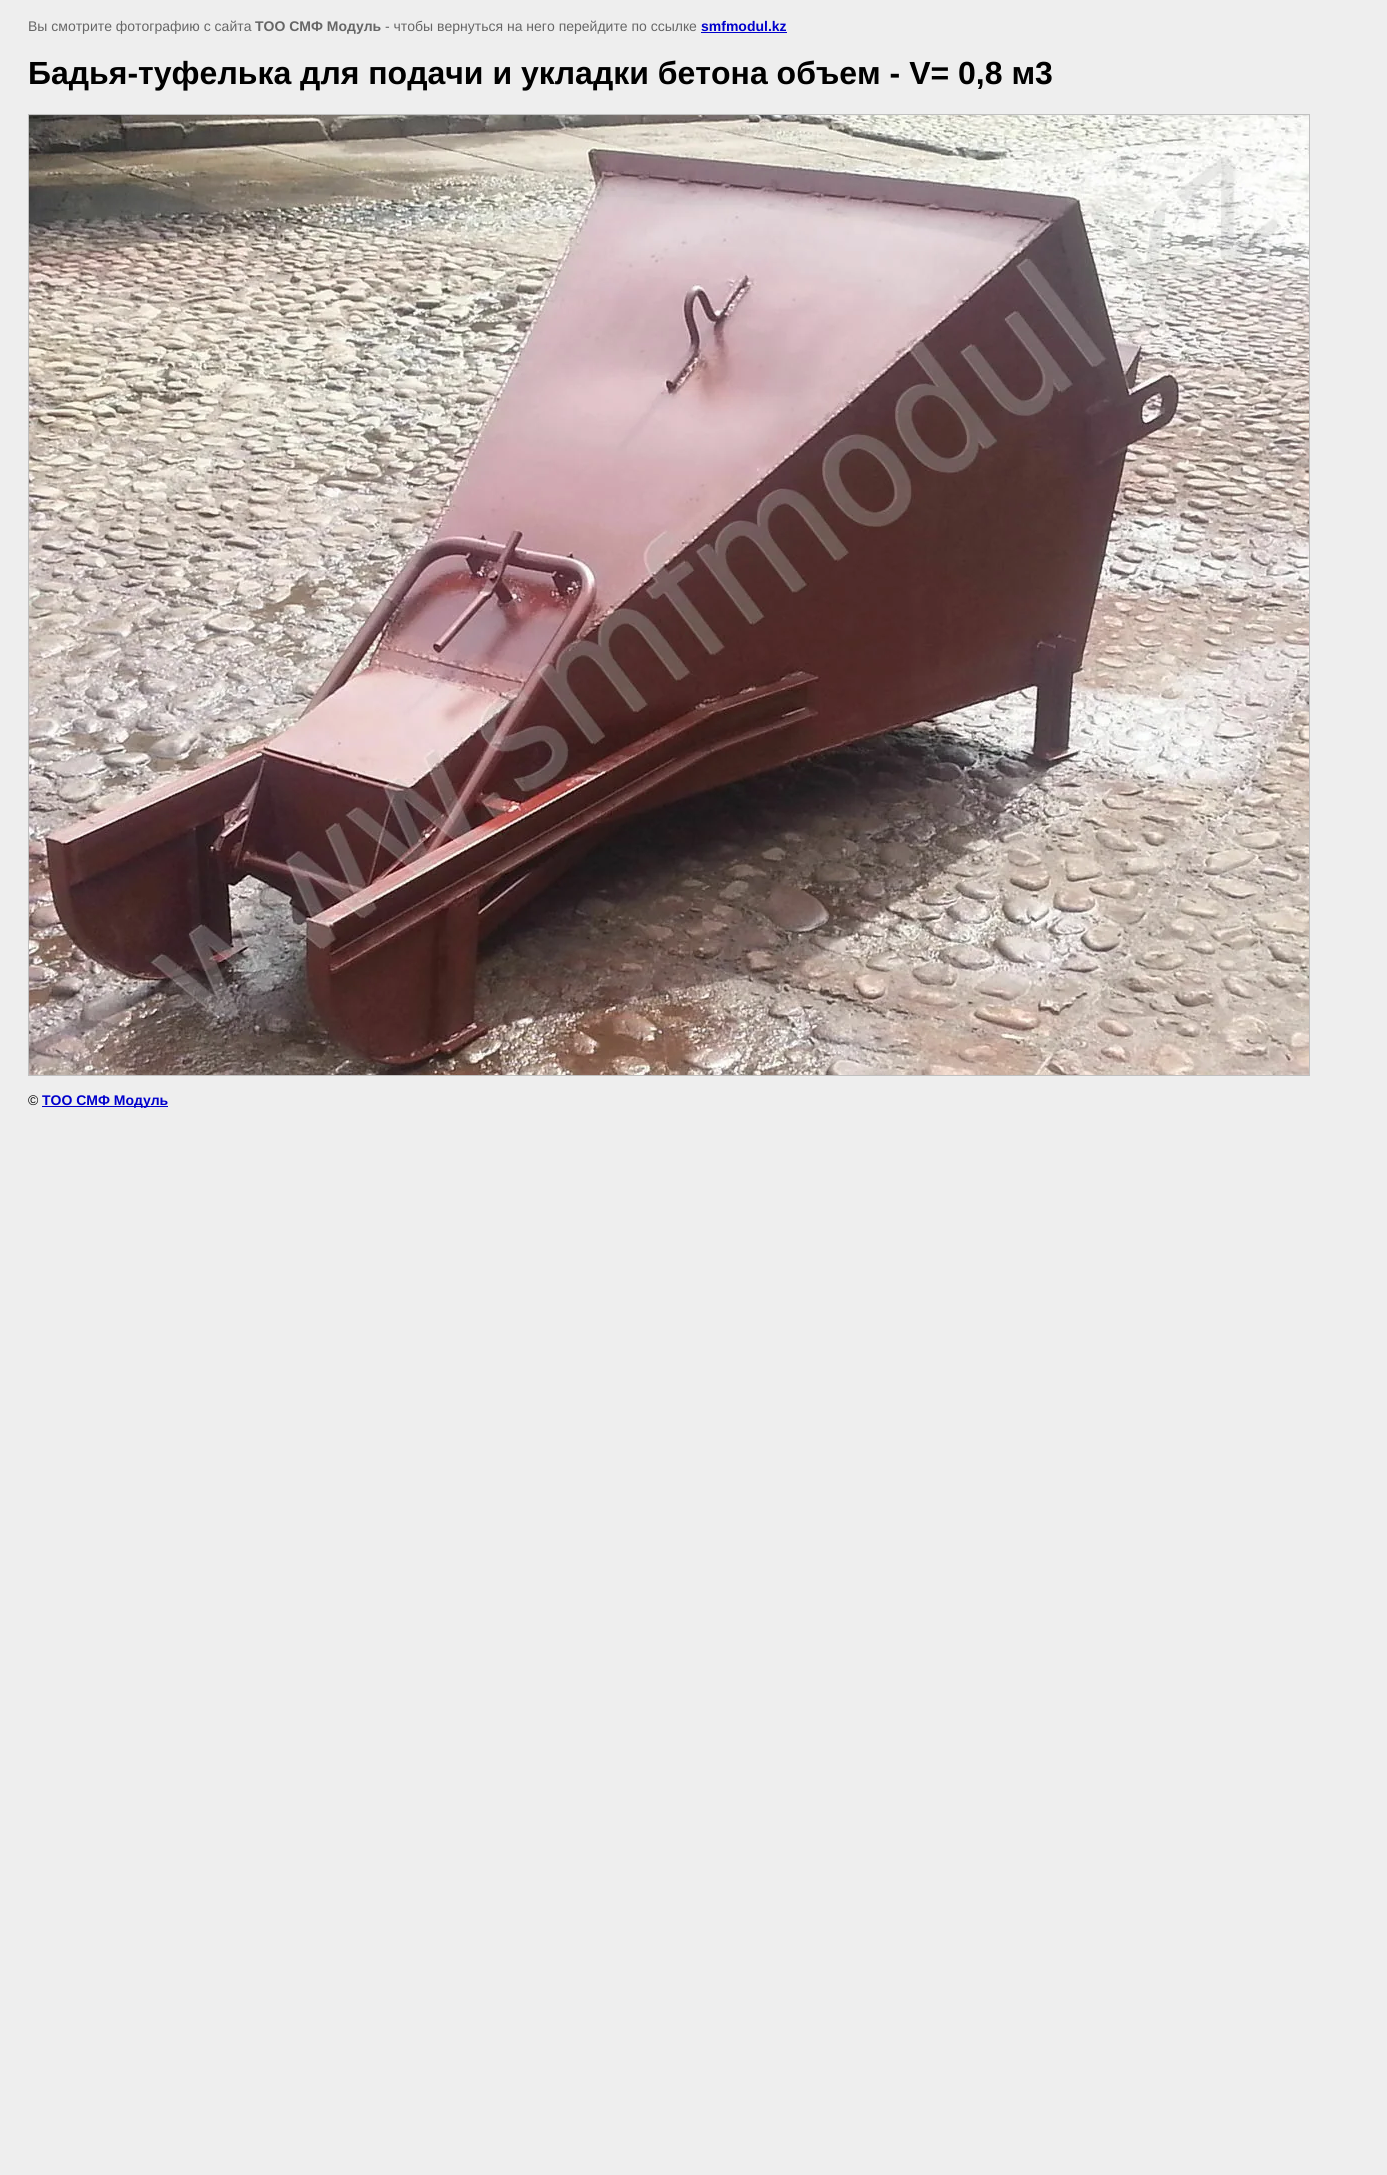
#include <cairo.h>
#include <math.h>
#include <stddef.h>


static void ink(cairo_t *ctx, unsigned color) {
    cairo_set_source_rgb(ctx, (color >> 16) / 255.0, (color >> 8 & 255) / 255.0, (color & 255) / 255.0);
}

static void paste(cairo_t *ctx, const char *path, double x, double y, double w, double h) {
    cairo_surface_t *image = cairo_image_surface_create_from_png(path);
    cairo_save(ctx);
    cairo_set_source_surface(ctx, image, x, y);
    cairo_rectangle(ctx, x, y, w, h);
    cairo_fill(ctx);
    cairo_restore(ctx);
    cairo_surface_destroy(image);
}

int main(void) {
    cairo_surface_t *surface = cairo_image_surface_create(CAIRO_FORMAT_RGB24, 1387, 2175);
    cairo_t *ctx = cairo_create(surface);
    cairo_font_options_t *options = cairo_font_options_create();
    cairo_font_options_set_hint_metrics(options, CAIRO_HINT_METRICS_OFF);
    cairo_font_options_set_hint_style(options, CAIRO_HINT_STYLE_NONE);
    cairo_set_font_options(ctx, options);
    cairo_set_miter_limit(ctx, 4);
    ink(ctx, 0xEEEEEE);
    cairo_paint(ctx);
    cairo_select_font_face(ctx, "Liberation Sans", CAIRO_FONT_SLANT_NORMAL, CAIRO_FONT_WEIGHT_NORMAL);
    cairo_set_font_size(ctx, 14);
    ink(ctx, 0x666666);
    cairo_move_to(ctx, 28, 31);
    cairo_show_text(ctx, "Вы смотрите фотографию с сайта");
    cairo_select_font_face(ctx, "Liberation Sans", CAIRO_FONT_SLANT_NORMAL, CAIRO_FONT_WEIGHT_BOLD);
    cairo_move_to(ctx, 255, 31);
    cairo_show_text(ctx, "ТОО СМФ Модуль");
    cairo_select_font_face(ctx, "Liberation Sans", CAIRO_FONT_SLANT_NORMAL, CAIRO_FONT_WEIGHT_NORMAL);
    cairo_move_to(ctx, 385, 31);
    cairo_show_text(ctx, "- чтобы вернуться на него перейдите по ссылке");
    cairo_select_font_face(ctx, "Liberation Sans", CAIRO_FONT_SLANT_NORMAL, CAIRO_FONT_WEIGHT_BOLD);
    ink(ctx, 0x0000CC);
    cairo_move_to(ctx, 701, 31);
    cairo_show_text(ctx, "smfmodul.kz");
    cairo_rectangle(ctx, 701, 32, 86, 1);
    cairo_fill(ctx);
    cairo_set_font_size(ctx, 32);
    ink(ctx, 0x000000);
    cairo_move_to(ctx, 28, 84);
    cairo_show_text(ctx, "Бадья-туфелька для подачи и укладки бетона объем - V= 0,8 м3");
    cairo_rectangle(ctx, 28.5, 114.5, 1281, 961);
    ink(ctx, 0xC0C0C0);
    cairo_set_line_width(ctx, 1);
    cairo_stroke(ctx);
    paste(ctx, "media/1.png", 29, 115, 1280, 960);
    cairo_select_font_face(ctx, "Liberation Sans", CAIRO_FONT_SLANT_NORMAL, CAIRO_FONT_WEIGHT_NORMAL);
    cairo_set_font_size(ctx, 14);
    ink(ctx, 0x000000);
    cairo_move_to(ctx, 28, 1105);
    cairo_show_text(ctx, "©");
    ink(ctx, 0x0000CC);
    cairo_rectangle(ctx, 42, 1106, 126, 1);
    cairo_fill(ctx);
    cairo_select_font_face(ctx, "Liberation Sans", CAIRO_FONT_SLANT_NORMAL, CAIRO_FONT_WEIGHT_BOLD);
    cairo_move_to(ctx, 42, 1105);
    cairo_show_text(ctx, "ТОО СМФ Модуль");
    cairo_surface_write_to_png(surface, "image.png");
    cairo_font_options_destroy(options);
    cairo_destroy(ctx);
    cairo_surface_destroy(surface);
    return 0;
}
